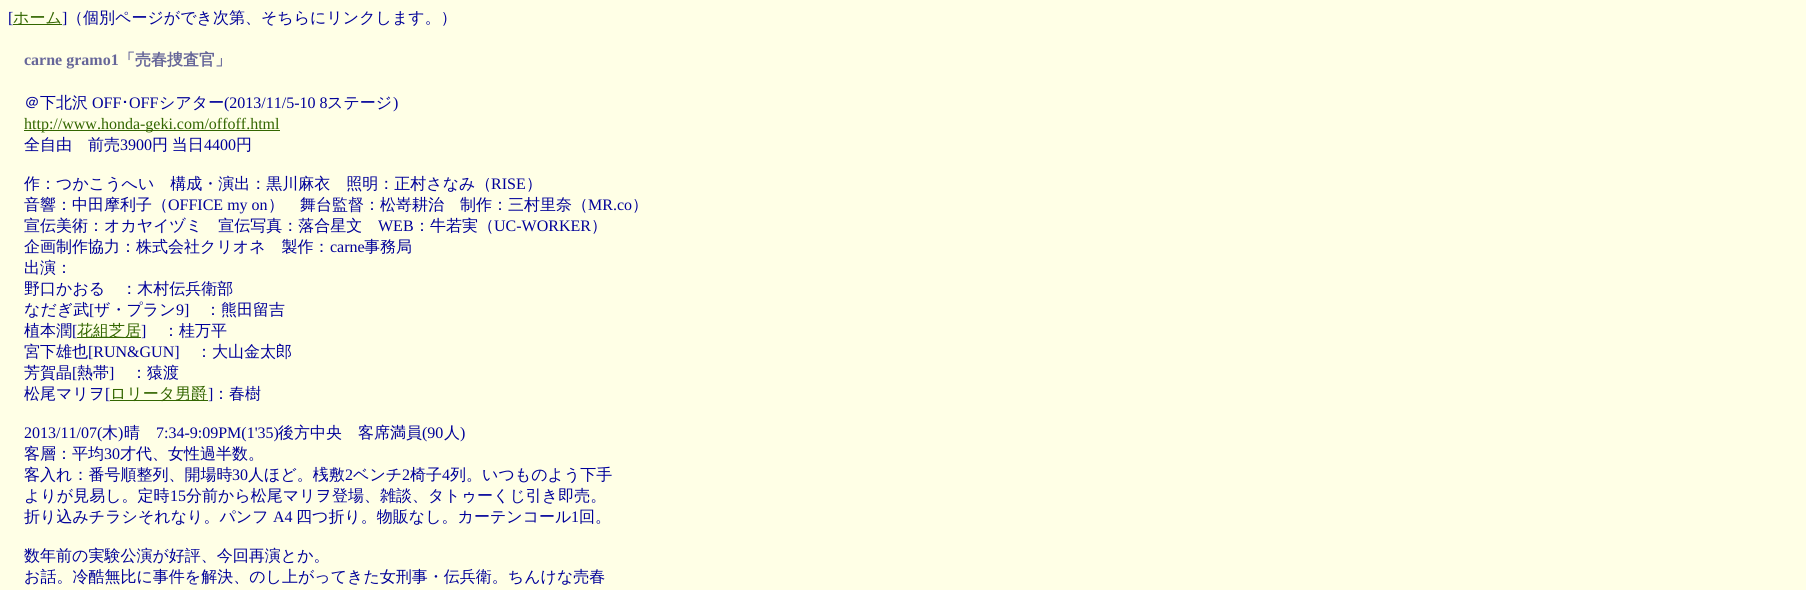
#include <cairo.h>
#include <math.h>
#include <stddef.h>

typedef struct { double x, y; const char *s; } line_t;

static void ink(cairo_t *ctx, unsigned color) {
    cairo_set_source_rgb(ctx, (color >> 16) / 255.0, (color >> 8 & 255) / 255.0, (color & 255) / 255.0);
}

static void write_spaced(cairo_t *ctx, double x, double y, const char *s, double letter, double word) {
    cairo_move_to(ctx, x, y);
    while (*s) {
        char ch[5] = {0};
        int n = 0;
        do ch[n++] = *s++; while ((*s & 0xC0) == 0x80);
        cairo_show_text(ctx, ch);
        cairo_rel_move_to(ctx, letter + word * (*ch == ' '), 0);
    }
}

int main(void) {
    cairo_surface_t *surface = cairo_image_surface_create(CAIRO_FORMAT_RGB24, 1806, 590);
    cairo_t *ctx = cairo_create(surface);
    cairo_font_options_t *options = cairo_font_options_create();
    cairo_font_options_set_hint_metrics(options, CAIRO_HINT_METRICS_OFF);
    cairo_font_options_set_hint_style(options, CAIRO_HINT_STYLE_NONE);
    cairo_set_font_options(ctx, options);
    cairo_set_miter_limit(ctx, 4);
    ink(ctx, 0xFFFFE6);
    cairo_paint(ctx);
    cairo_select_font_face(ctx, "Liberation Serif", CAIRO_FONT_SLANT_NORMAL, CAIRO_FONT_WEIGHT_NORMAL);
    cairo_set_font_size(ctx, 16);
    ink(ctx, 0x000099);
    cairo_move_to(ctx, 8, 23);
    cairo_show_text(ctx, "[");
    ink(ctx, 0x336600);
    cairo_rectangle(ctx, 13, 24, 49, 1);
    cairo_fill(ctx);
    cairo_select_font_face(ctx, "WenQuanYi Zen Hei Medium", CAIRO_FONT_SLANT_NORMAL, CAIRO_FONT_WEIGHT_NORMAL);
    cairo_move_to(ctx, 13, 23);
    cairo_show_text(ctx, "ホーム");
    cairo_select_font_face(ctx, "Liberation Serif", CAIRO_FONT_SLANT_NORMAL, CAIRO_FONT_WEIGHT_NORMAL);
    ink(ctx, 0x000099);
    cairo_move_to(ctx, 62, 23);
    cairo_show_text(ctx, "]");
    cairo_select_font_face(ctx, "WenQuanYi Zen Hei Medium", CAIRO_FONT_SLANT_NORMAL, CAIRO_FONT_WEIGHT_NORMAL);
    cairo_move_to(ctx, 67, 23);
    cairo_show_text(ctx, "（個別ページができ次第、そちらにリンクします。）");
    cairo_select_font_face(ctx, "Liberation Serif", CAIRO_FONT_SLANT_NORMAL, CAIRO_FONT_WEIGHT_BOLD);
    ink(ctx, 0x666699);
    cairo_move_to(ctx, 24, 65);
    cairo_show_text(ctx, "carne gramo1");
    cairo_select_font_face(ctx, "WenQuanYi Zen Hei", CAIRO_FONT_SLANT_NORMAL, CAIRO_FONT_WEIGHT_BOLD);
    cairo_move_to(ctx, 119, 65);
    cairo_show_text(ctx, "「売春捜査官」");
    cairo_select_font_face(ctx, "WenQuanYi Zen Hei Medium", CAIRO_FONT_SLANT_NORMAL, CAIRO_FONT_WEIGHT_NORMAL);
    ink(ctx, 0x000099);
    cairo_move_to(ctx, 24, 108);
    cairo_show_text(ctx, "＠下北沢");
    cairo_select_font_face(ctx, "Liberation Serif", CAIRO_FONT_SLANT_NORMAL, CAIRO_FONT_WEIGHT_NORMAL);
    cairo_move_to(ctx, 92, 108);
    cairo_show_text(ctx, "OFF");
    cairo_select_font_face(ctx, "IPAGothic", CAIRO_FONT_SLANT_NORMAL, CAIRO_FONT_WEIGHT_NORMAL);
    cairo_move_to(ctx, 121, 108);
    cairo_show_text(ctx, "･");
    cairo_select_font_face(ctx, "Liberation Serif", CAIRO_FONT_SLANT_NORMAL, CAIRO_FONT_WEIGHT_NORMAL);
    cairo_move_to(ctx, 129, 108);
    cairo_show_text(ctx, "OFF");
    cairo_select_font_face(ctx, "WenQuanYi Zen Hei Medium", CAIRO_FONT_SLANT_NORMAL, CAIRO_FONT_WEIGHT_NORMAL);
    cairo_move_to(ctx, 159, 108);
    cairo_show_text(ctx, "シアター");
    cairo_select_font_face(ctx, "Liberation Serif", CAIRO_FONT_SLANT_NORMAL, CAIRO_FONT_WEIGHT_NORMAL);
    cairo_move_to(ctx, 224, 108);
    cairo_show_text(ctx, "(2013/11/5-10 8");
    cairo_select_font_face(ctx, "WenQuanYi Zen Hei Medium", CAIRO_FONT_SLANT_NORMAL, CAIRO_FONT_WEIGHT_NORMAL);
    cairo_move_to(ctx, 327, 108);
    cairo_show_text(ctx, "ステージ");
    cairo_select_font_face(ctx, "Liberation Serif", CAIRO_FONT_SLANT_NORMAL, CAIRO_FONT_WEIGHT_NORMAL);
    cairo_move_to(ctx, 393, 108);
    cairo_show_text(ctx, ")");
    ink(ctx, 0x336600);
    cairo_rectangle(ctx, 24, 130, 256, 1);
    cairo_fill(ctx);
    cairo_move_to(ctx, 24, 129);
    cairo_show_text(ctx, "http://www.honda-geki.com/offoff.html");
    cairo_select_font_face(ctx, "WenQuanYi Zen Hei Medium", CAIRO_FONT_SLANT_NORMAL, CAIRO_FONT_WEIGHT_NORMAL);
    ink(ctx, 0x000099);
    cairo_move_to(ctx, 24, 150);
    cairo_show_text(ctx, "全自由　前売");
    cairo_select_font_face(ctx, "Liberation Serif", CAIRO_FONT_SLANT_NORMAL, CAIRO_FONT_WEIGHT_NORMAL);
    cairo_move_to(ctx, 120, 150);
    cairo_show_text(ctx, "3900");
    cairo_select_font_face(ctx, "WenQuanYi Zen Hei Medium", CAIRO_FONT_SLANT_NORMAL, CAIRO_FONT_WEIGHT_NORMAL);
    write_spaced(ctx, 152, 150, "円 当日", 0, -1);
    cairo_select_font_face(ctx, "Liberation Serif", CAIRO_FONT_SLANT_NORMAL, CAIRO_FONT_WEIGHT_NORMAL);
    cairo_move_to(ctx, 204, 150);
    cairo_show_text(ctx, "4400");
    cairo_select_font_face(ctx, "WenQuanYi Zen Hei Medium", CAIRO_FONT_SLANT_NORMAL, CAIRO_FONT_WEIGHT_NORMAL);
    cairo_move_to(ctx, 236, 150);
    cairo_show_text(ctx, "円");
    cairo_move_to(ctx, 24, 189);
    cairo_show_text(ctx, "作：つかこうへい　構成・演出：黒川麻衣　照明：正村さなみ（");
    cairo_select_font_face(ctx, "Liberation Serif", CAIRO_FONT_SLANT_NORMAL, CAIRO_FONT_WEIGHT_NORMAL);
    cairo_move_to(ctx, 491, 189);
    cairo_show_text(ctx, "RISE");
    cairo_select_font_face(ctx, "WenQuanYi Zen Hei Medium", CAIRO_FONT_SLANT_NORMAL, CAIRO_FONT_WEIGHT_NORMAL);
    cairo_move_to(ctx, 526, 189);
    cairo_show_text(ctx, "）");
    cairo_move_to(ctx, 24, 210);
    cairo_show_text(ctx, "音響：中田摩利子（");
    cairo_select_font_face(ctx, "Liberation Serif", CAIRO_FONT_SLANT_NORMAL, CAIRO_FONT_WEIGHT_NORMAL);
    cairo_move_to(ctx, 168, 210);
    cairo_show_text(ctx, "OFFICE my on");
    cairo_select_font_face(ctx, "WenQuanYi Zen Hei Medium", CAIRO_FONT_SLANT_NORMAL, CAIRO_FONT_WEIGHT_NORMAL);
    cairo_move_to(ctx, 268, 210);
    cairo_show_text(ctx, "）　舞台監督：松嵜耕治　制作：三村里奈（");
    cairo_select_font_face(ctx, "Liberation Serif", CAIRO_FONT_SLANT_NORMAL, CAIRO_FONT_WEIGHT_NORMAL);
    cairo_move_to(ctx, 588, 210);
    cairo_show_text(ctx, "MR.co");
    cairo_select_font_face(ctx, "WenQuanYi Zen Hei Medium", CAIRO_FONT_SLANT_NORMAL, CAIRO_FONT_WEIGHT_NORMAL);
    cairo_move_to(ctx, 632, 210);
    cairo_show_text(ctx, "）");
    cairo_move_to(ctx, 24, 231);
    cairo_show_text(ctx, "宣伝美術：オカヤイヅミ　宣伝写真：落合星文");
    cairo_select_font_face(ctx, "Liberation Serif", CAIRO_FONT_SLANT_NORMAL, CAIRO_FONT_WEIGHT_NORMAL);
    cairo_move_to(ctx, 378, 231);
    cairo_show_text(ctx, "WEB");
    cairo_select_font_face(ctx, "WenQuanYi Zen Hei Medium", CAIRO_FONT_SLANT_NORMAL, CAIRO_FONT_WEIGHT_NORMAL);
    cairo_move_to(ctx, 414, 231);
    cairo_show_text(ctx, "：牛若実（");
    cairo_select_font_face(ctx, "Liberation Serif", CAIRO_FONT_SLANT_NORMAL, CAIRO_FONT_WEIGHT_NORMAL);
    cairo_move_to(ctx, 494, 231);
    cairo_show_text(ctx, "UC-WORKER");
    cairo_select_font_face(ctx, "WenQuanYi Zen Hei Medium", CAIRO_FONT_SLANT_NORMAL, CAIRO_FONT_WEIGHT_NORMAL);
    cairo_move_to(ctx, 591, 231);
    cairo_show_text(ctx, "）");
    cairo_move_to(ctx, 24, 252);
    cairo_show_text(ctx, "企画制作協力：株式会社クリオネ　製作：");
    cairo_select_font_face(ctx, "Liberation Serif", CAIRO_FONT_SLANT_NORMAL, CAIRO_FONT_WEIGHT_NORMAL);
    cairo_move_to(ctx, 330, 252);
    cairo_show_text(ctx, "carne");
    cairo_select_font_face(ctx, "WenQuanYi Zen Hei Medium", CAIRO_FONT_SLANT_NORMAL, CAIRO_FONT_WEIGHT_NORMAL);
    {
        static const line_t items[] = {
            {364, 252, "事務局"},
            {24, 273, "出演："},
            {24, 294, "野口かおる　：木村伝兵衛部"},
            {24, 315, "なだぎ武"},
        };
        for (size_t i = 0; i < sizeof items / sizeof *items; i++) {
            cairo_move_to(ctx, items[i].x, items[i].y);
            cairo_show_text(ctx, items[i].s);
        }
    }
    cairo_select_font_face(ctx, "Liberation Serif", CAIRO_FONT_SLANT_NORMAL, CAIRO_FONT_WEIGHT_NORMAL);
    cairo_move_to(ctx, 89, 315);
    cairo_show_text(ctx, "[");
    cairo_select_font_face(ctx, "WenQuanYi Zen Hei Medium", CAIRO_FONT_SLANT_NORMAL, CAIRO_FONT_WEIGHT_NORMAL);
    cairo_move_to(ctx, 94, 315);
    cairo_show_text(ctx, "ザ・プラン");
    cairo_select_font_face(ctx, "Liberation Serif", CAIRO_FONT_SLANT_NORMAL, CAIRO_FONT_WEIGHT_NORMAL);
    cairo_move_to(ctx, 176, 315);
    cairo_show_text(ctx, "9]");
    cairo_select_font_face(ctx, "WenQuanYi Zen Hei Medium", CAIRO_FONT_SLANT_NORMAL, CAIRO_FONT_WEIGHT_NORMAL);
    cairo_move_to(ctx, 205, 315);
    cairo_show_text(ctx, "：熊田留吉");
    cairo_move_to(ctx, 24, 336);
    cairo_show_text(ctx, "植本潤");
    cairo_select_font_face(ctx, "Liberation Serif", CAIRO_FONT_SLANT_NORMAL, CAIRO_FONT_WEIGHT_NORMAL);
    cairo_move_to(ctx, 72, 336);
    cairo_show_text(ctx, "[");
    ink(ctx, 0x336600);
    cairo_rectangle(ctx, 77, 337, 64, 1);
    cairo_fill(ctx);
    cairo_select_font_face(ctx, "WenQuanYi Zen Hei Medium", CAIRO_FONT_SLANT_NORMAL, CAIRO_FONT_WEIGHT_NORMAL);
    cairo_move_to(ctx, 77, 336);
    cairo_show_text(ctx, "花組芝居");
    cairo_select_font_face(ctx, "Liberation Serif", CAIRO_FONT_SLANT_NORMAL, CAIRO_FONT_WEIGHT_NORMAL);
    ink(ctx, 0x000099);
    cairo_move_to(ctx, 141, 336);
    cairo_show_text(ctx, "]");
    cairo_select_font_face(ctx, "WenQuanYi Zen Hei Medium", CAIRO_FONT_SLANT_NORMAL, CAIRO_FONT_WEIGHT_NORMAL);
    cairo_move_to(ctx, 163, 336);
    cairo_show_text(ctx, "：桂万平");
    cairo_move_to(ctx, 24, 357);
    cairo_show_text(ctx, "宮下雄也");
    cairo_select_font_face(ctx, "Liberation Serif", CAIRO_FONT_SLANT_NORMAL, CAIRO_FONT_WEIGHT_NORMAL);
    cairo_move_to(ctx, 88, 357);
    cairo_show_text(ctx, "[RUN&GUN]");
    cairo_select_font_face(ctx, "WenQuanYi Zen Hei Medium", CAIRO_FONT_SLANT_NORMAL, CAIRO_FONT_WEIGHT_NORMAL);
    cairo_move_to(ctx, 196, 357);
    cairo_show_text(ctx, "：大山金太郎");
    cairo_move_to(ctx, 24, 378);
    cairo_show_text(ctx, "芳賀晶");
    cairo_select_font_face(ctx, "Liberation Serif", CAIRO_FONT_SLANT_NORMAL, CAIRO_FONT_WEIGHT_NORMAL);
    cairo_move_to(ctx, 72, 378);
    cairo_show_text(ctx, "[");
    cairo_select_font_face(ctx, "WenQuanYi Zen Hei Medium", CAIRO_FONT_SLANT_NORMAL, CAIRO_FONT_WEIGHT_NORMAL);
    cairo_move_to(ctx, 77, 378);
    cairo_show_text(ctx, "熱帯");
    cairo_select_font_face(ctx, "Liberation Serif", CAIRO_FONT_SLANT_NORMAL, CAIRO_FONT_WEIGHT_NORMAL);
    cairo_move_to(ctx, 109, 378);
    cairo_show_text(ctx, "]");
    cairo_select_font_face(ctx, "WenQuanYi Zen Hei Medium", CAIRO_FONT_SLANT_NORMAL, CAIRO_FONT_WEIGHT_NORMAL);
    cairo_move_to(ctx, 131, 378);
    cairo_show_text(ctx, "：猿渡");
    cairo_move_to(ctx, 24, 399);
    cairo_show_text(ctx, "松尾マリヲ");
    cairo_select_font_face(ctx, "Liberation Serif", CAIRO_FONT_SLANT_NORMAL, CAIRO_FONT_WEIGHT_NORMAL);
    cairo_move_to(ctx, 105, 399);
    cairo_show_text(ctx, "[");
    ink(ctx, 0x336600);
    cairo_rectangle(ctx, 110, 400, 98, 1);
    cairo_fill(ctx);
    cairo_select_font_face(ctx, "WenQuanYi Zen Hei Medium", CAIRO_FONT_SLANT_NORMAL, CAIRO_FONT_WEIGHT_NORMAL);
    cairo_move_to(ctx, 110, 399);
    cairo_show_text(ctx, "ロリータ男爵");
    cairo_select_font_face(ctx, "Liberation Serif", CAIRO_FONT_SLANT_NORMAL, CAIRO_FONT_WEIGHT_NORMAL);
    ink(ctx, 0x000099);
    cairo_move_to(ctx, 208, 399);
    cairo_show_text(ctx, "]");
    cairo_select_font_face(ctx, "WenQuanYi Zen Hei Medium", CAIRO_FONT_SLANT_NORMAL, CAIRO_FONT_WEIGHT_NORMAL);
    cairo_move_to(ctx, 213, 399);
    cairo_show_text(ctx, "：春樹");
    cairo_select_font_face(ctx, "Liberation Serif", CAIRO_FONT_SLANT_NORMAL, CAIRO_FONT_WEIGHT_NORMAL);
    cairo_move_to(ctx, 24, 438);
    cairo_show_text(ctx, "2013/11/07(");
    cairo_select_font_face(ctx, "WenQuanYi Zen Hei Medium", CAIRO_FONT_SLANT_NORMAL, CAIRO_FONT_WEIGHT_NORMAL);
    cairo_move_to(ctx, 102, 438);
    cairo_show_text(ctx, "木");
    cairo_select_font_face(ctx, "Liberation Serif", CAIRO_FONT_SLANT_NORMAL, CAIRO_FONT_WEIGHT_NORMAL);
    cairo_move_to(ctx, 118, 438);
    cairo_show_text(ctx, ")");
    cairo_select_font_face(ctx, "WenQuanYi Zen Hei Medium", CAIRO_FONT_SLANT_NORMAL, CAIRO_FONT_WEIGHT_NORMAL);
    cairo_move_to(ctx, 124, 438);
    cairo_show_text(ctx, "晴");
    cairo_select_font_face(ctx, "Liberation Serif", CAIRO_FONT_SLANT_NORMAL, CAIRO_FONT_WEIGHT_NORMAL);
    cairo_move_to(ctx, 156, 438);
    cairo_show_text(ctx, "7:34-9:09PM(1'35)");
    cairo_select_font_face(ctx, "WenQuanYi Zen Hei Medium", CAIRO_FONT_SLANT_NORMAL, CAIRO_FONT_WEIGHT_NORMAL);
    cairo_move_to(ctx, 278, 438);
    cairo_show_text(ctx, "後方中央　客席満員");
    cairo_select_font_face(ctx, "Liberation Serif", CAIRO_FONT_SLANT_NORMAL, CAIRO_FONT_WEIGHT_NORMAL);
    cairo_move_to(ctx, 422, 438);
    cairo_show_text(ctx, "(90");
    cairo_select_font_face(ctx, "WenQuanYi Zen Hei Medium", CAIRO_FONT_SLANT_NORMAL, CAIRO_FONT_WEIGHT_NORMAL);
    cairo_move_to(ctx, 444, 438);
    cairo_show_text(ctx, "人");
    cairo_select_font_face(ctx, "Liberation Serif", CAIRO_FONT_SLANT_NORMAL, CAIRO_FONT_WEIGHT_NORMAL);
    cairo_move_to(ctx, 460, 438);
    cairo_show_text(ctx, ")");
    cairo_select_font_face(ctx, "WenQuanYi Zen Hei Medium", CAIRO_FONT_SLANT_NORMAL, CAIRO_FONT_WEIGHT_NORMAL);
    cairo_move_to(ctx, 24, 459);
    cairo_show_text(ctx, "客層：平均");
    cairo_select_font_face(ctx, "Liberation Serif", CAIRO_FONT_SLANT_NORMAL, CAIRO_FONT_WEIGHT_NORMAL);
    cairo_move_to(ctx, 104, 459);
    cairo_show_text(ctx, "30");
    cairo_select_font_face(ctx, "WenQuanYi Zen Hei Medium", CAIRO_FONT_SLANT_NORMAL, CAIRO_FONT_WEIGHT_NORMAL);
    cairo_move_to(ctx, 120, 459);
    cairo_show_text(ctx, "才代、女性過半数。");
    cairo_move_to(ctx, 24, 480);
    cairo_show_text(ctx, "客入れ：番号順整列、開場時");
    cairo_select_font_face(ctx, "Liberation Serif", CAIRO_FONT_SLANT_NORMAL, CAIRO_FONT_WEIGHT_NORMAL);
    cairo_move_to(ctx, 232, 480);
    cairo_show_text(ctx, "30");
    cairo_select_font_face(ctx, "WenQuanYi Zen Hei Medium", CAIRO_FONT_SLANT_NORMAL, CAIRO_FONT_WEIGHT_NORMAL);
    cairo_move_to(ctx, 248, 480);
    cairo_show_text(ctx, "人ほど。桟敷");
    cairo_select_font_face(ctx, "Liberation Serif", CAIRO_FONT_SLANT_NORMAL, CAIRO_FONT_WEIGHT_NORMAL);
    cairo_move_to(ctx, 345, 480);
    cairo_show_text(ctx, "2");
    cairo_select_font_face(ctx, "WenQuanYi Zen Hei Medium", CAIRO_FONT_SLANT_NORMAL, CAIRO_FONT_WEIGHT_NORMAL);
    cairo_move_to(ctx, 353, 480);
    cairo_show_text(ctx, "ベンチ");
    cairo_select_font_face(ctx, "Liberation Serif", CAIRO_FONT_SLANT_NORMAL, CAIRO_FONT_WEIGHT_NORMAL);
    cairo_move_to(ctx, 402, 480);
    cairo_show_text(ctx, "2");
    cairo_select_font_face(ctx, "WenQuanYi Zen Hei Medium", CAIRO_FONT_SLANT_NORMAL, CAIRO_FONT_WEIGHT_NORMAL);
    cairo_move_to(ctx, 410, 480);
    cairo_show_text(ctx, "椅子");
    cairo_select_font_face(ctx, "Liberation Serif", CAIRO_FONT_SLANT_NORMAL, CAIRO_FONT_WEIGHT_NORMAL);
    cairo_move_to(ctx, 442, 480);
    cairo_show_text(ctx, "4");
    cairo_select_font_face(ctx, "WenQuanYi Zen Hei Medium", CAIRO_FONT_SLANT_NORMAL, CAIRO_FONT_WEIGHT_NORMAL);
    cairo_move_to(ctx, 450, 480);
    cairo_show_text(ctx, "列。いつものよう下手");
    cairo_move_to(ctx, 24, 501);
    cairo_show_text(ctx, "よりが見易し。定時");
    cairo_select_font_face(ctx, "Liberation Serif", CAIRO_FONT_SLANT_NORMAL, CAIRO_FONT_WEIGHT_NORMAL);
    cairo_move_to(ctx, 170, 501);
    cairo_show_text(ctx, "15");
    cairo_select_font_face(ctx, "WenQuanYi Zen Hei Medium", CAIRO_FONT_SLANT_NORMAL, CAIRO_FONT_WEIGHT_NORMAL);
    cairo_move_to(ctx, 186, 501);
    cairo_show_text(ctx, "分前から松尾マリヲ登場、雑談、タトゥーくじ引き即売。");
    cairo_move_to(ctx, 24, 522);
    cairo_show_text(ctx, "折り込みチラシそれなり。パンフ");
    cairo_select_font_face(ctx, "Liberation Serif", CAIRO_FONT_SLANT_NORMAL, CAIRO_FONT_WEIGHT_NORMAL);
    cairo_move_to(ctx, 273, 522);
    cairo_show_text(ctx, "A4");
    cairo_select_font_face(ctx, "WenQuanYi Zen Hei Medium", CAIRO_FONT_SLANT_NORMAL, CAIRO_FONT_WEIGHT_NORMAL);
    cairo_move_to(ctx, 296, 522);
    cairo_show_text(ctx, "四つ折り。物販なし。カーテンコール");
    cairo_select_font_face(ctx, "Liberation Serif", CAIRO_FONT_SLANT_NORMAL, CAIRO_FONT_WEIGHT_NORMAL);
    cairo_move_to(ctx, 571, 522);
    cairo_show_text(ctx, "1");
    cairo_select_font_face(ctx, "WenQuanYi Zen Hei Medium", CAIRO_FONT_SLANT_NORMAL, CAIRO_FONT_WEIGHT_NORMAL);
    {
        static const line_t items[] = {
            {579, 522, "回。"},
            {24, 561, "数年前の実験公演が好評、今回再演とか。"},
            {24, 582, "お話。冷酷無比に事件を解決、のし上がってきた女刑事・伝兵衛。ちんけな売春"},
        };
        for (size_t i = 0; i < sizeof items / sizeof *items; i++) {
            cairo_move_to(ctx, items[i].x, items[i].y);
            cairo_show_text(ctx, items[i].s);
        }
    }
    cairo_surface_write_to_png(surface, "image.png");
    cairo_font_options_destroy(options);
    cairo_destroy(ctx);
    cairo_surface_destroy(surface);
    return 0;
}
